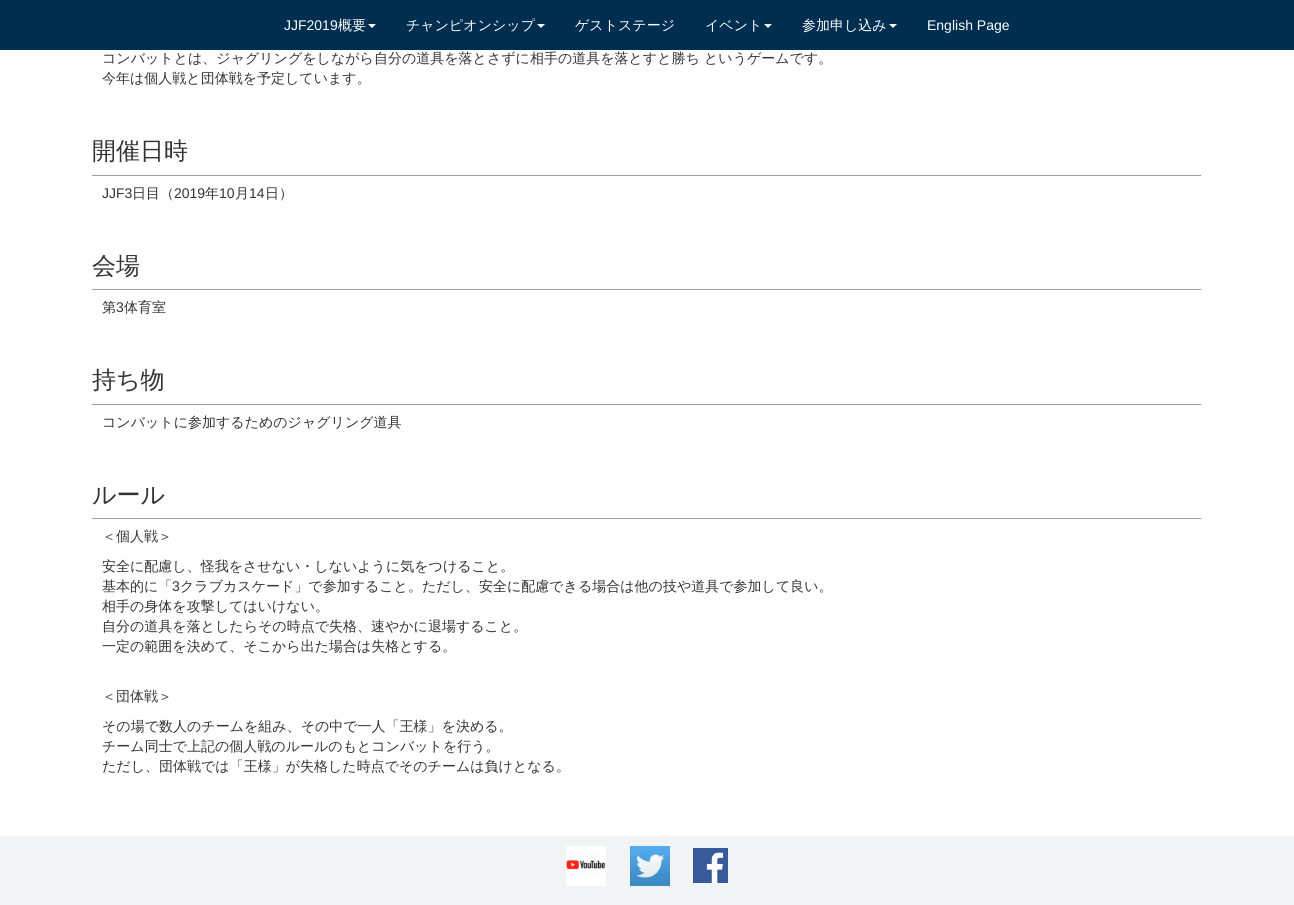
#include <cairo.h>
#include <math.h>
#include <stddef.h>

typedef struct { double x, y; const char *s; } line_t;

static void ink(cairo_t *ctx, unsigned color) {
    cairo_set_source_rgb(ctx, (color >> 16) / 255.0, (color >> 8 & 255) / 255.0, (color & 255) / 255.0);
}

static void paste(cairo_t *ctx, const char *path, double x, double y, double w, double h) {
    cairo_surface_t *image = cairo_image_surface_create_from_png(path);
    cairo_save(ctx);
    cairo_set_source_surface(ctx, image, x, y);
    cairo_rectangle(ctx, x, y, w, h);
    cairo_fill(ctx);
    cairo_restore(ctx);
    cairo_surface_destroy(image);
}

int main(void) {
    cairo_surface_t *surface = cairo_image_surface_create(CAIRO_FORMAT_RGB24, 1294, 905);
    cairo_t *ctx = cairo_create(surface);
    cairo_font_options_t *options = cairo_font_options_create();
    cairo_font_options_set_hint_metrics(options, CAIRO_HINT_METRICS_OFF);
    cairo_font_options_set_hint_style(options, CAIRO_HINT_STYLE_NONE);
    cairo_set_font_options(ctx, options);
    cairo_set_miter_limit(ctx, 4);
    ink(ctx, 0xFFFFFF);
    cairo_paint(ctx);
    ink(ctx, 0x002E50);
    cairo_rectangle(ctx, 0, 0, 1294, 50);
    cairo_fill(ctx);
    cairo_select_font_face(ctx, "Liberation Sans", CAIRO_FONT_SLANT_NORMAL, CAIRO_FONT_WEIGHT_NORMAL);
    cairo_set_font_size(ctx, 14);
    ink(ctx, 0xFCFEFF);
    cairo_move_to(ctx, 284, 30);
    cairo_show_text(ctx, "JJF2019");
    cairo_select_font_face(ctx, "WenQuanYi Zen Hei Medium", CAIRO_FONT_SLANT_NORMAL, CAIRO_FONT_WEIGHT_NORMAL);
    cairo_move_to(ctx, 338, 30);
    cairo_show_text(ctx, "概要");
    cairo_new_path(ctx);
    cairo_move_to(ctx, 368, 24);
    cairo_line_to(ctx, 376, 24);
    cairo_line_to(ctx, 372, 28);
    cairo_close_path(ctx);
    cairo_fill(ctx);
    cairo_move_to(ctx, 406, 30);
    cairo_show_text(ctx, "チャンピオンシップ");
    cairo_new_path(ctx);
    cairo_move_to(ctx, 537, 24);
    cairo_line_to(ctx, 545, 24);
    cairo_line_to(ctx, 541, 28);
    cairo_close_path(ctx);
    cairo_fill(ctx);
    cairo_move_to(ctx, 575, 30);
    cairo_show_text(ctx, "ゲストステージ");
    cairo_move_to(ctx, 705, 30);
    cairo_show_text(ctx, "イベント");
    cairo_new_path(ctx);
    cairo_move_to(ctx, 764, 24);
    cairo_line_to(ctx, 772, 24);
    cairo_line_to(ctx, 768, 28);
    cairo_close_path(ctx);
    cairo_fill(ctx);
    cairo_move_to(ctx, 802, 30);
    cairo_show_text(ctx, "参加申し込み");
    cairo_new_path(ctx);
    cairo_move_to(ctx, 889, 24);
    cairo_line_to(ctx, 897, 24);
    cairo_line_to(ctx, 893, 28);
    cairo_close_path(ctx);
    cairo_fill(ctx);
    cairo_select_font_face(ctx, "Liberation Sans", CAIRO_FONT_SLANT_NORMAL, CAIRO_FONT_WEIGHT_NORMAL);
    cairo_move_to(ctx, 927, 30);
    cairo_show_text(ctx, "English Page");
    cairo_select_font_face(ctx, "WenQuanYi Zen Hei Medium", CAIRO_FONT_SLANT_NORMAL, CAIRO_FONT_WEIGHT_NORMAL);
    ink(ctx, 0x333333);
    cairo_move_to(ctx, 102, 63);
    cairo_show_text(ctx, "コンバットとは、ジャグリングをしながら自分の道具を落とさずに相手の道具を落とすと勝ち というゲームです。");
    cairo_move_to(ctx, 102, 83);
    cairo_show_text(ctx, "今年は個人戦と団体戦を予定しています。");
    cairo_set_font_size(ctx, 24);
    cairo_move_to(ctx, 92, 159);
    cairo_show_text(ctx, "開催日時");
    ink(ctx, 0x9F9F9F);
    cairo_rectangle(ctx, 92, 175, 1110, 1);
    cairo_fill(ctx);
    ink(ctx, 0xEEEEEE);
    cairo_rectangle(ctx, 1201, 175, 1, 1);
    cairo_fill(ctx);
    cairo_select_font_face(ctx, "Liberation Sans", CAIRO_FONT_SLANT_NORMAL, CAIRO_FONT_WEIGHT_NORMAL);
    cairo_set_font_size(ctx, 14);
    ink(ctx, 0x333333);
    cairo_move_to(ctx, 102, 198);
    cairo_show_text(ctx, "JJF3");
    cairo_select_font_face(ctx, "WenQuanYi Zen Hei Medium", CAIRO_FONT_SLANT_NORMAL, CAIRO_FONT_WEIGHT_NORMAL);
    cairo_move_to(ctx, 132, 198);
    cairo_show_text(ctx, "日目（");
    cairo_select_font_face(ctx, "Liberation Sans", CAIRO_FONT_SLANT_NORMAL, CAIRO_FONT_WEIGHT_NORMAL);
    cairo_move_to(ctx, 174, 198);
    cairo_show_text(ctx, "2019");
    cairo_select_font_face(ctx, "WenQuanYi Zen Hei Medium", CAIRO_FONT_SLANT_NORMAL, CAIRO_FONT_WEIGHT_NORMAL);
    cairo_move_to(ctx, 205, 198);
    cairo_show_text(ctx, "年");
    cairo_select_font_face(ctx, "Liberation Sans", CAIRO_FONT_SLANT_NORMAL, CAIRO_FONT_WEIGHT_NORMAL);
    cairo_move_to(ctx, 219, 198);
    cairo_show_text(ctx, "10");
    cairo_select_font_face(ctx, "WenQuanYi Zen Hei Medium", CAIRO_FONT_SLANT_NORMAL, CAIRO_FONT_WEIGHT_NORMAL);
    cairo_move_to(ctx, 235, 198);
    cairo_show_text(ctx, "月");
    cairo_select_font_face(ctx, "Liberation Sans", CAIRO_FONT_SLANT_NORMAL, CAIRO_FONT_WEIGHT_NORMAL);
    cairo_move_to(ctx, 249, 198);
    cairo_show_text(ctx, "14");
    cairo_select_font_face(ctx, "WenQuanYi Zen Hei Medium", CAIRO_FONT_SLANT_NORMAL, CAIRO_FONT_WEIGHT_NORMAL);
    cairo_move_to(ctx, 265, 198);
    cairo_show_text(ctx, "日）");
    cairo_set_font_size(ctx, 24);
    cairo_move_to(ctx, 92, 274);
    cairo_show_text(ctx, "会場");
    ink(ctx, 0x9F9F9F);
    cairo_rectangle(ctx, 92, 289, 1110, 1);
    cairo_fill(ctx);
    ink(ctx, 0xEEEEEE);
    cairo_rectangle(ctx, 1201, 289, 1, 1);
    cairo_fill(ctx);
    cairo_set_font_size(ctx, 14);
    ink(ctx, 0x333333);
    cairo_move_to(ctx, 102, 312);
    cairo_show_text(ctx, "第");
    cairo_select_font_face(ctx, "Liberation Sans", CAIRO_FONT_SLANT_NORMAL, CAIRO_FONT_WEIGHT_NORMAL);
    cairo_move_to(ctx, 116, 312);
    cairo_show_text(ctx, "3");
    cairo_select_font_face(ctx, "WenQuanYi Zen Hei Medium", CAIRO_FONT_SLANT_NORMAL, CAIRO_FONT_WEIGHT_NORMAL);
    cairo_move_to(ctx, 124, 312);
    cairo_show_text(ctx, "体育室");
    cairo_set_font_size(ctx, 24);
    cairo_move_to(ctx, 92, 388);
    cairo_show_text(ctx, "持ち物");
    ink(ctx, 0x9F9F9F);
    cairo_rectangle(ctx, 92, 404, 1110, 1);
    cairo_fill(ctx);
    ink(ctx, 0xEEEEEE);
    cairo_rectangle(ctx, 1201, 404, 1, 1);
    cairo_fill(ctx);
    cairo_set_font_size(ctx, 14);
    ink(ctx, 0x333333);
    cairo_move_to(ctx, 102, 427);
    cairo_show_text(ctx, "コンバットに参加するためのジャグリング道具");
    cairo_set_font_size(ctx, 24);
    cairo_move_to(ctx, 92, 503);
    cairo_show_text(ctx, "ルール");
    ink(ctx, 0x9F9F9F);
    cairo_rectangle(ctx, 92, 518, 1110, 1);
    cairo_fill(ctx);
    ink(ctx, 0xEEEEEE);
    cairo_rectangle(ctx, 1201, 518, 1, 1);
    cairo_fill(ctx);
    cairo_set_font_size(ctx, 14);
    ink(ctx, 0x333333);
    {
        static const line_t items[] = {
            {102, 541, "＜個人戦＞"},
            {102, 571, "安全に配慮し、怪我をさせない・しないように気をつけること。"},
            {102, 591, "基本的に「"},
        };
        for (size_t i = 0; i < sizeof items / sizeof *items; i++) {
            cairo_move_to(ctx, items[i].x, items[i].y);
            cairo_show_text(ctx, items[i].s);
        }
    }
    cairo_select_font_face(ctx, "Liberation Sans", CAIRO_FONT_SLANT_NORMAL, CAIRO_FONT_WEIGHT_NORMAL);
    cairo_move_to(ctx, 172, 591);
    cairo_show_text(ctx, "3");
    cairo_select_font_face(ctx, "WenQuanYi Zen Hei Medium", CAIRO_FONT_SLANT_NORMAL, CAIRO_FONT_WEIGHT_NORMAL);
    {
        static const line_t items[] = {
            {180, 591, "クラブカスケード」で参加すること。ただし、安全に配慮できる場合は他の技や道具で参加して良い。"},
            {102, 611, "相手の身体を攻撃してはいけない。"},
            {102, 631, "自分の道具を落としたらその時点で失格、速やかに退場すること。"},
            {102, 651, "一定の範囲を決めて、そこから出た場合は失格とする。"},
            {102, 701, "＜団体戦＞"},
            {102, 731, "その場で数人のチームを組み、その中で一人「王様」を決める。"},
            {102, 751, "チーム同士で上記の個人戦のルールのもとコンバットを行う。"},
            {102, 771, "ただし、団体戦では「王様」が失格した時点でそのチームは負けとなる。"},
        };
        for (size_t i = 0; i < sizeof items / sizeof *items; i++) {
            cairo_move_to(ctx, items[i].x, items[i].y);
            cairo_show_text(ctx, items[i].s);
        }
    }
    ink(ctx, 0xF1F3F5);
    cairo_rectangle(ctx, 0, 836, 1294, 69);
    cairo_fill(ctx);
    paste(ctx, "media/1.png", 566, 846, 40, 40);
    paste(ctx, "media/2.png", 630, 846, 40, 40);
    paste(ctx, "media/3.png", 693, 848, 35, 35);
    cairo_surface_write_to_png(surface, "image.png");
    cairo_font_options_destroy(options);
    cairo_destroy(ctx);
    cairo_surface_destroy(surface);
    return 0;
}
